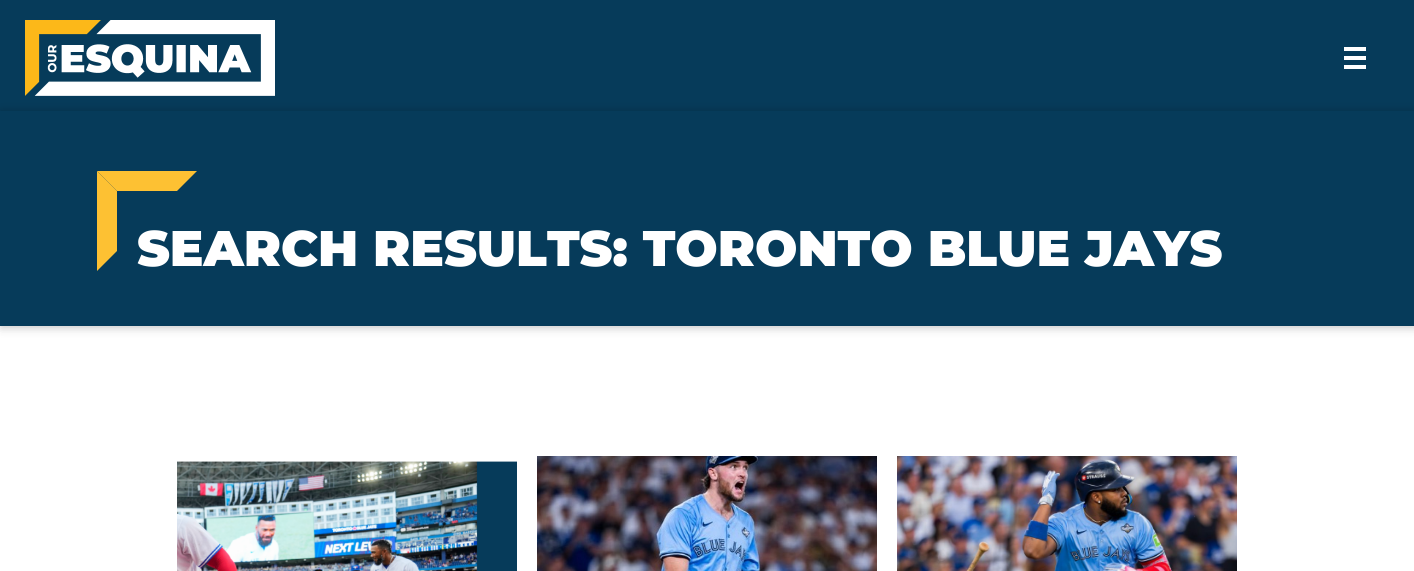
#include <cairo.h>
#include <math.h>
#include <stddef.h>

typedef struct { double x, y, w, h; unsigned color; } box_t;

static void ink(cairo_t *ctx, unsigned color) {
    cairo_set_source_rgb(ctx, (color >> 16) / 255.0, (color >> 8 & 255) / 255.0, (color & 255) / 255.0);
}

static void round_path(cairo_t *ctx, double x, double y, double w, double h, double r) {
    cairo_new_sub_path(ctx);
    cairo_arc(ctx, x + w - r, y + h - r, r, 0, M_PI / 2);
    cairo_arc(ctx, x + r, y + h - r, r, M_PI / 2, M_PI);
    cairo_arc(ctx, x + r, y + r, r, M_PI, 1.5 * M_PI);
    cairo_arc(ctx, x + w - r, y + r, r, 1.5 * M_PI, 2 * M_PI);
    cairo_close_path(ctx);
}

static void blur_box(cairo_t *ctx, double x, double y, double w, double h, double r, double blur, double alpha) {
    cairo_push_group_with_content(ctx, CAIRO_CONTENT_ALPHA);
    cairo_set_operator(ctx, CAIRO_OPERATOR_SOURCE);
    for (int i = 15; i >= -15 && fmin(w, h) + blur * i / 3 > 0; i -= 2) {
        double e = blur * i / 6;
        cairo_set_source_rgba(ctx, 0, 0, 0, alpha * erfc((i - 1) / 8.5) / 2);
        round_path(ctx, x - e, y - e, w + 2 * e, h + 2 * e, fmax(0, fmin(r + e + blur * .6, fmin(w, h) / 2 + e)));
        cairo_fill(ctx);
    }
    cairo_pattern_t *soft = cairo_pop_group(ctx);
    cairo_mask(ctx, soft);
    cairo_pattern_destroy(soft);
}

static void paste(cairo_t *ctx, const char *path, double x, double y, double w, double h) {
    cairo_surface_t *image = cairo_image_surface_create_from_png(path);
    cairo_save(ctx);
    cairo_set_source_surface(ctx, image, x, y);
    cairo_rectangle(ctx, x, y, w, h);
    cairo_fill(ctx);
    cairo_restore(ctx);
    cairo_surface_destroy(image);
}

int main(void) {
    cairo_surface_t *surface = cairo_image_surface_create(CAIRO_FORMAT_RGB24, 1414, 571);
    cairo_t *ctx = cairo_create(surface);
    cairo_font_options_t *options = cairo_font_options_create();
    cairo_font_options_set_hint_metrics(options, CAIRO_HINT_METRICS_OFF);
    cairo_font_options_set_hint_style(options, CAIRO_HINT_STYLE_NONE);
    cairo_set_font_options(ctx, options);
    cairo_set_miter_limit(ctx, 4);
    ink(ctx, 0x063B5A);
    cairo_paint(ctx);
    paste(ctx, "media/1.png", 25, 20, 250, 76);
    {
        static const box_t items[] = {
            {1344, 47, 22, 4, 0xFFFFFF},
            {1344, 56, 22, 4, 0xFFFFFF},
            {1344, 65, 22, 4, 0xFFFFFF},
            {0, 326, 1414, 245, 0xFFFFFF},
        };
        for (size_t i = 0; i < sizeof items / sizeof *items; i++) {
            ink(ctx, items[i].color);
            cairo_rectangle(ctx, items[i].x, items[i].y, items[i].w, items[i].h);
            cairo_fill(ctx);
        }
    }
    ink(ctx, 0x000000);
    blur_box(ctx, 1, 112, 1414, 215, 0, 5, 0.25);
    ink(ctx, 0x063B5A);
    cairo_rectangle(ctx, 0, 111, 1414, 215);
    cairo_fill(ctx);
    ink(ctx, 0xFDC133);
    cairo_new_path(ctx);
    cairo_move_to(ctx, 97, 171);
    cairo_line_to(ctx, 197, 171);
    cairo_line_to(ctx, 177, 191);
    cairo_line_to(ctx, 117, 191);
    cairo_close_path(ctx);
    cairo_fill(ctx);
    cairo_new_path(ctx);
    cairo_move_to(ctx, 97, 271);
    cairo_line_to(ctx, 97, 171);
    cairo_line_to(ctx, 117, 191);
    cairo_line_to(ctx, 117, 251);
    cairo_close_path(ctx);
    cairo_fill(ctx);
    cairo_select_font_face(ctx, "Montserrat Black", CAIRO_FONT_SLANT_NORMAL, CAIRO_FONT_WEIGHT_NORMAL);
    cairo_set_font_size(ctx, 50);
    ink(ctx, 0xFFFFFF);
    cairo_move_to(ctx, 137, 266);
    cairo_show_text(ctx, "SEARCH RESULTS: TORONTO BLUE JAYS");
    paste(ctx, "media/2.png", 177, 461, 340, 110);
    paste(ctx, "media/3.png", 537, 456, 340, 115);
    paste(ctx, "media/4.png", 897, 456, 340, 115);
    cairo_surface_write_to_png(surface, "image.png");
    cairo_font_options_destroy(options);
    cairo_destroy(ctx);
    cairo_surface_destroy(surface);
    return 0;
}
